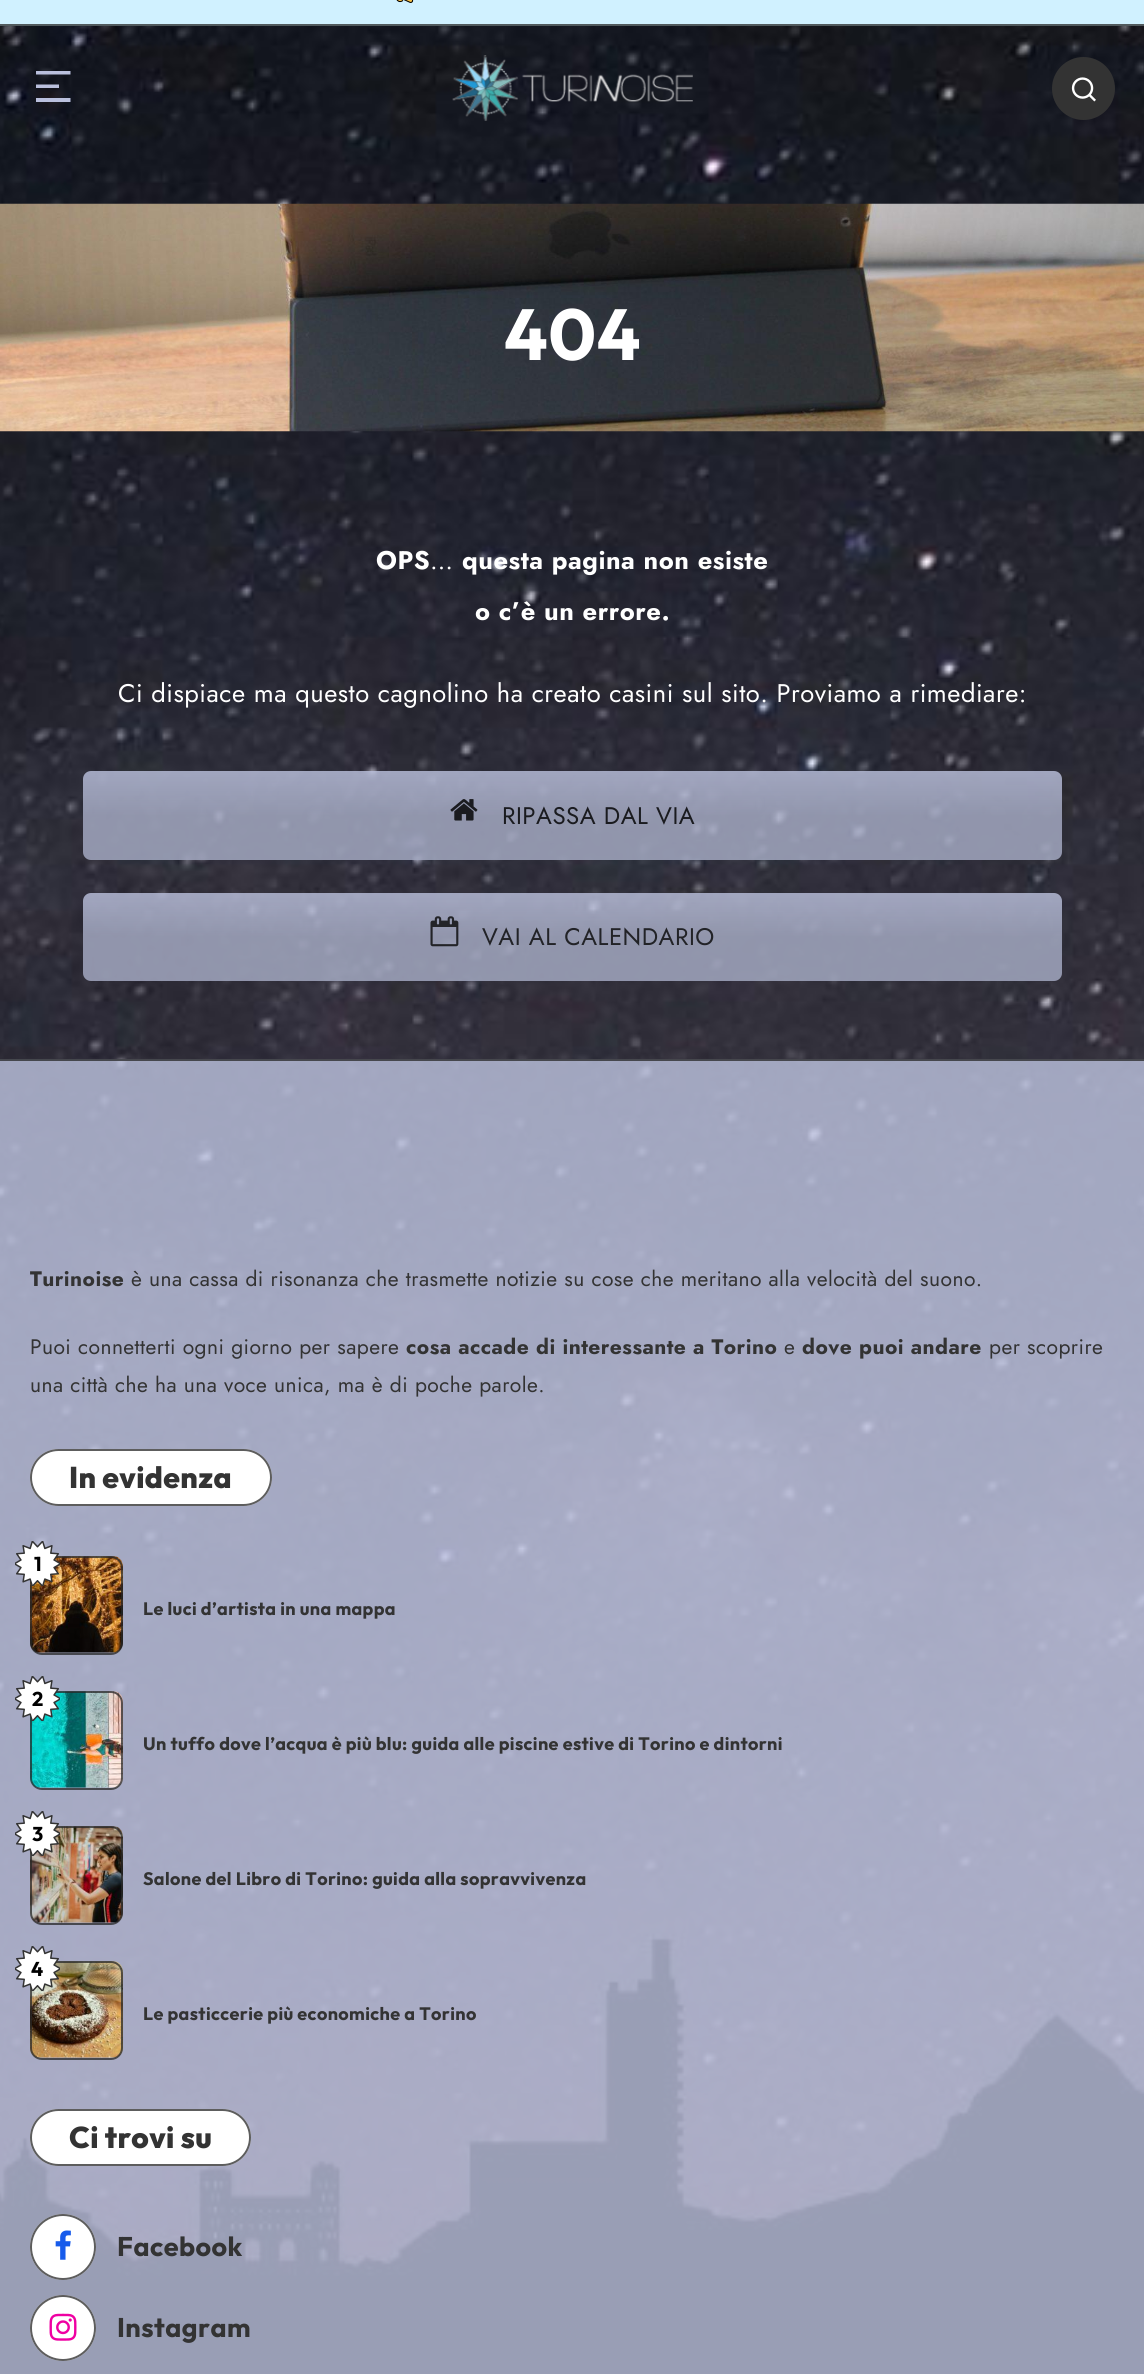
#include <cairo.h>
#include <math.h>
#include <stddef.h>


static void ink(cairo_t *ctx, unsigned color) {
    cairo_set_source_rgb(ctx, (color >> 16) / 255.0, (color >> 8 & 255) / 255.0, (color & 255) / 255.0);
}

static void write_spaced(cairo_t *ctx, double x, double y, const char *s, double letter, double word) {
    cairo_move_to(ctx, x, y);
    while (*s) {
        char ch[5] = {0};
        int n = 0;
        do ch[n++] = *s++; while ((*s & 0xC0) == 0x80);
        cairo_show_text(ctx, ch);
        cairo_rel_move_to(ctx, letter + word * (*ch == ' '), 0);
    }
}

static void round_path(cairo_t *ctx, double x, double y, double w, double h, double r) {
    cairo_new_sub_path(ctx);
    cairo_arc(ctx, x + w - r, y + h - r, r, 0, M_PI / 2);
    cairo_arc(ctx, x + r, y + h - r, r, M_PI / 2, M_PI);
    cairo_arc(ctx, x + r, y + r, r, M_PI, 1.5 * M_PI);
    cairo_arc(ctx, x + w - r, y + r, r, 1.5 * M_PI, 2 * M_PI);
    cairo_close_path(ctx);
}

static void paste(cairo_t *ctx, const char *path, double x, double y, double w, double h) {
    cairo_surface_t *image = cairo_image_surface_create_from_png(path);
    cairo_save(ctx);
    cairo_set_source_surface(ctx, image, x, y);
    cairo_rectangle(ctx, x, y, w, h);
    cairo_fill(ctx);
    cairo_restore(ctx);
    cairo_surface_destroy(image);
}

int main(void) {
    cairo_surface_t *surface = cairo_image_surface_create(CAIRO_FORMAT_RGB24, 1144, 2374);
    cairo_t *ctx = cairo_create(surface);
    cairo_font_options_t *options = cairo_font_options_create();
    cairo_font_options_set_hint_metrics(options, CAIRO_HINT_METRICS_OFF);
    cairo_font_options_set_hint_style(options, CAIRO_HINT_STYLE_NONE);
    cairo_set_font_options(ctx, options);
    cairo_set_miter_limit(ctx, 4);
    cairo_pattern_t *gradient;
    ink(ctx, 0xFFFFFF);
    cairo_paint(ctx);
    paste(ctx, "media/1.png", 0, 26, 1144, 2348);
    ink(ctx, 0xD0F1FF);
    cairo_rectangle(ctx, 0, 0, 1144, 24);
    cairo_fill(ctx);
    ink(ctx, 0x515A5D);
    cairo_rectangle(ctx, 0, 24, 1144, 2);
    cairo_fill(ctx);
    paste(ctx, "media/2.png", 396, 0, 18, 3);
    ink(ctx, 0xBAC0DD);
    cairo_new_path(ctx);
    cairo_move_to(ctx, 36, 71);
    cairo_line_to(ctx, 70.5, 71);
    cairo_line_to(ctx, 70.5, 74.5);
    cairo_line_to(ctx, 36, 74.5);
    cairo_close_path(ctx);
    cairo_move_to(ctx, 36, 84.5);
    cairo_line_to(ctx, 59, 84.5);
    cairo_line_to(ctx, 59, 88);
    cairo_line_to(ctx, 36, 88);
    cairo_close_path(ctx);
    cairo_move_to(ctx, 36, 98);
    cairo_line_to(ctx, 70.5, 98);
    cairo_line_to(ctx, 70.5, 102);
    cairo_line_to(ctx, 36, 102);
    cairo_close_path(ctx);
    cairo_fill(ctx);
    paste(ctx, "media/3.png", 452, 55, 241, 66);
    ink(ctx, 0x333333);
    cairo_arc(ctx, 1083.5, 88.5, 30.5, 0, 2 * M_PI);
    cairo_fill_preserve(ctx);
    cairo_stroke(ctx);
    paste(ctx, "media/4.png", 1071, 77, 25, 25);
    paste(ctx, "media/5.png", 0, 203, 1144, 229);
    cairo_select_font_face(ctx, "Outfit", CAIRO_FONT_SLANT_NORMAL, CAIRO_FONT_WEIGHT_BOLD);
    cairo_set_font_size(ctx, 72);
    ink(ctx, 0xFFFFFF);
    write_spaced(ctx, 504, 360, "404", 0.52, 0);
    cairo_select_font_face(ctx, "Jost", CAIRO_FONT_SLANT_NORMAL, CAIRO_FONT_WEIGHT_BOLD);
    cairo_set_font_size(ctx, 25.5);
    write_spaced(ctx, 376, 569, "OPS", 0.52, 0);
    cairo_select_font_face(ctx, "Jost", CAIRO_FONT_SLANT_NORMAL, CAIRO_FONT_WEIGHT_NORMAL);
    write_spaced(ctx, 430, 569, "…", 0.52, 0);
    cairo_select_font_face(ctx, "Jost", CAIRO_FONT_SLANT_NORMAL, CAIRO_FONT_WEIGHT_BOLD);
    write_spaced(ctx, 462, 569, "questa pagina non esiste", 0.52, 0);
    write_spaced(ctx, 475, 620, "o c’è un errore.", 0.52, 0);
    cairo_select_font_face(ctx, "Jost", CAIRO_FONT_SLANT_NORMAL, CAIRO_FONT_WEIGHT_NORMAL);
    write_spaced(ctx, 118, 702, "Ci dispiace ma questo cagnolino ha creato casini sul sito. Proviamo a rimediare:", 0.52, 0);
    cairo_set_source_rgba(ctx, 0.729, 0.753, 0.867, 0.82);
    round_path(ctx, 83, 771, 979, 89, 8);
    cairo_fill(ctx);
    gradient = cairo_pattern_create_linear(1062, 771, 1062, 860);
    cairo_pattern_add_color_stop_rgba(gradient, 0, 0, 0, 0, 0);
    cairo_pattern_add_color_stop_rgba(gradient, 0.5, 0, 0, 0, 0.1);
    cairo_pattern_add_color_stop_rgba(gradient, 1, 0, 0, 0, 0.1);
    cairo_set_source(ctx, gradient);
    cairo_pattern_destroy(gradient);
    round_path(ctx, 83, 771, 979, 89, 8);
    cairo_fill(ctx);
    paste(ctx, "media/6.png", 450, 799, 28, 22);
    cairo_set_font_size(ctx, 24);
    ink(ctx, 0x1A1B1F);
    write_spaced(ctx, 502, 824, "RIPASSA DAL VIA", 0.52, 0);
    cairo_set_source_rgba(ctx, 0.729, 0.753, 0.867, 0.82);
    round_path(ctx, 83, 893, 979, 88, 8);
    cairo_fill(ctx);
    gradient = cairo_pattern_create_linear(1062, 892, 1062, 981);
    cairo_pattern_add_color_stop_rgba(gradient, 0, 0, 0, 0, 0);
    cairo_pattern_add_color_stop_rgba(gradient, 0.5, 0, 0, 0, 0.1);
    cairo_pattern_add_color_stop_rgba(gradient, 1, 0, 0, 0, 0.1);
    cairo_set_source(ctx, gradient);
    cairo_pattern_destroy(gradient);
    round_path(ctx, 83, 893, 979, 88, 8);
    cairo_fill(ctx);
    paste(ctx, "media/7.png", 430, 916, 29, 31);
    ink(ctx, 0x222327);
    write_spaced(ctx, 482, 945, "VAI AL CALENDARIO", 0.52, 0);
    cairo_set_source_rgba(ctx, 0.729, 0.753, 0.867, 0.82);
    cairo_rectangle(ctx, 0, 1059, 1144, 1315);
    cairo_fill(ctx);
    cairo_set_source_rgba(ctx, 0.153, 0.153, 0.153, 0.75);
    cairo_rectangle(ctx, 0, 1059, 1144, 2);
    cairo_fill(ctx);
    cairo_select_font_face(ctx, "Jost", CAIRO_FONT_SLANT_NORMAL, CAIRO_FONT_WEIGHT_BOLD);
    cairo_set_font_size(ctx, 21);
    ink(ctx, 0x333333);
    write_spaced(ctx, 30, 1286, "Turinoise", 0.45, 0);
    cairo_select_font_face(ctx, "Jost", CAIRO_FONT_SLANT_NORMAL, CAIRO_FONT_WEIGHT_NORMAL);
    write_spaced(ctx, 131, 1286, "è una cassa di risonanza che trasmette notizie su cose che meritano alla velocità del suono.", 0.45, 0);
    write_spaced(ctx, 30, 1354, "Puoi connetterti ogni giorno per sapere", 0.45, 0);
    cairo_select_font_face(ctx, "Jost", CAIRO_FONT_SLANT_NORMAL, CAIRO_FONT_WEIGHT_BOLD);
    write_spaced(ctx, 406, 1354, "cosa accade di interessante a Torino", 0.45, 0);
    cairo_select_font_face(ctx, "Jost", CAIRO_FONT_SLANT_NORMAL, CAIRO_FONT_WEIGHT_NORMAL);
    write_spaced(ctx, 784, 1354, "e", 0.45, 0);
    cairo_select_font_face(ctx, "Jost", CAIRO_FONT_SLANT_NORMAL, CAIRO_FONT_WEIGHT_BOLD);
    write_spaced(ctx, 802, 1354, "dove puoi andare", 0.45, 0);
    cairo_select_font_face(ctx, "Jost", CAIRO_FONT_SLANT_NORMAL, CAIRO_FONT_WEIGHT_NORMAL);
    write_spaced(ctx, 989, 1354, "per scoprire", 0.45, 0);
    write_spaced(ctx, 30, 1392, "una città che ha una voce unica, ma è di poche parole.", 0.45, 0);
    ink(ctx, 0xFFFFFF);
    round_path(ctx, 30, 1449, 242, 57, 28.5);
    cairo_fill(ctx);
    round_path(ctx, 31, 1450, 240, 55, 27.5);
    cairo_set_source_rgba(ctx, 0.153, 0.153, 0.153, 0.75);
    cairo_stroke(ctx);
    cairo_select_font_face(ctx, "Outfit ExtraBold", CAIRO_FONT_SLANT_NORMAL, CAIRO_FONT_WEIGHT_NORMAL);
    cairo_set_font_size(ctx, 30);
    ink(ctx, 0x333333);
    write_spaced(ctx, 69, 1488, "In evidenza", 0.38, 0);
    paste(ctx, "media/8.png", 30, 1556, 93, 97);
    round_path(ctx, 31, 1557, 91, 97, 11);
    cairo_set_source_rgba(ctx, 0.153, 0.153, 0.153, 0.75);
    cairo_stroke(ctx);
    paste(ctx, "media/9.png", 15, 1541, 45, 45);
    cairo_select_font_face(ctx, "Outfit", CAIRO_FONT_SLANT_NORMAL, CAIRO_FONT_WEIGHT_BOLD);
    cairo_set_font_size(ctx, 20);
    ink(ctx, 0x000000);
    write_spaced(ctx, 34, 1571, "1", 0.45, 0);
    cairo_set_font_size(ctx, 18);
    ink(ctx, 0x333333);
    write_spaced(ctx, 143, 1615, "Le luci d’artista in una mappa", 0.38, 0);
    paste(ctx, "media/10.png", 30, 1691, 93, 97);
    round_path(ctx, 31, 1692, 91, 97, 11);
    cairo_set_source_rgba(ctx, 0.153, 0.153, 0.153, 0.75);
    cairo_stroke(ctx);
    paste(ctx, "media/11.png", 15, 1676, 45, 45);
    cairo_set_font_size(ctx, 20);
    ink(ctx, 0x000000);
    write_spaced(ctx, 32, 1706, "2", 0.45, 0);
    cairo_set_font_size(ctx, 18);
    ink(ctx, 0x333333);
    write_spaced(ctx, 143, 1750, "Un tuffo dove l’acqua è più blu: guida alle piscine estive di Torino e dintorni", 0.38, 0);
    paste(ctx, "media/12.png", 30, 1826, 93, 97);
    round_path(ctx, 31, 1827, 91, 97, 11);
    cairo_set_source_rgba(ctx, 0.153, 0.153, 0.153, 0.75);
    cairo_stroke(ctx);
    paste(ctx, "media/13.png", 15, 1811, 45, 45);
    cairo_set_font_size(ctx, 20);
    ink(ctx, 0x000000);
    write_spaced(ctx, 32, 1841, "3", 0.45, 0);
    cairo_set_font_size(ctx, 18);
    ink(ctx, 0x333333);
    write_spaced(ctx, 143, 1885, "Salone del Libro di Torino: guida alla sopravvivenza", 0.38, 0);
    paste(ctx, "media/14.png", 30, 1961, 93, 97);
    round_path(ctx, 31, 1962, 91, 97, 11);
    cairo_set_source_rgba(ctx, 0.153, 0.153, 0.153, 0.75);
    cairo_stroke(ctx);
    paste(ctx, "media/15.png", 15, 1946, 45, 45);
    cairo_set_font_size(ctx, 20);
    ink(ctx, 0x000000);
    write_spaced(ctx, 31, 1976, "4", 0.45, 0);
    cairo_set_font_size(ctx, 18);
    ink(ctx, 0x333333);
    write_spaced(ctx, 143, 2020, "Le pasticcerie più economiche a Torino", 0.38, 0);
    ink(ctx, 0xFFFFFF);
    round_path(ctx, 30, 2109, 221, 57, 28.5);
    cairo_fill(ctx);
    round_path(ctx, 31, 2110, 219, 55, 27.5);
    cairo_set_source_rgba(ctx, 0.153, 0.153, 0.153, 0.75);
    cairo_stroke(ctx);
    cairo_select_font_face(ctx, "Outfit ExtraBold", CAIRO_FONT_SLANT_NORMAL, CAIRO_FONT_WEIGHT_NORMAL);
    cairo_set_font_size(ctx, 30);
    ink(ctx, 0x333333);
    write_spaced(ctx, 69, 2148, "Ci trovi su", 0.38, 0);
    ink(ctx, 0xFFFFFF);
    cairo_new_path(ctx);
    cairo_arc(ctx, 63, 2247, 33, 0, 2 * M_PI);
    cairo_fill(ctx);
    cairo_arc(ctx, 63, 2247, 32, 0, 2 * M_PI);
    cairo_set_source_rgba(ctx, 0.153, 0.153, 0.153, 0.75);
    cairo_stroke(ctx);
    paste(ctx, "media/16.png", 55, 2230, 16, 30);
    cairo_select_font_face(ctx, "Outfit", CAIRO_FONT_SLANT_NORMAL, CAIRO_FONT_WEIGHT_BOLD);
    cairo_set_font_size(ctx, 27);
    ink(ctx, 0x333333);
    write_spaced(ctx, 117, 2256, "Facebook", 0.45, 0);
    ink(ctx, 0xFFFFFF);
    cairo_new_path(ctx);
    cairo_arc(ctx, 63, 2328, 33, 0, 2 * M_PI);
    cairo_fill(ctx);
    cairo_arc(ctx, 63, 2328, 32, 0, 2 * M_PI);
    cairo_set_source_rgba(ctx, 0.153, 0.153, 0.153, 0.75);
    cairo_stroke(ctx);
    paste(ctx, "media/17.png", 49, 2313, 28, 28);
    ink(ctx, 0x333333);
    write_spaced(ctx, 117, 2337, "Instagram", 0.45, 0);
    cairo_surface_write_to_png(surface, "image.png");
    cairo_font_options_destroy(options);
    cairo_destroy(ctx);
    cairo_surface_destroy(surface);
    return 0;
}
